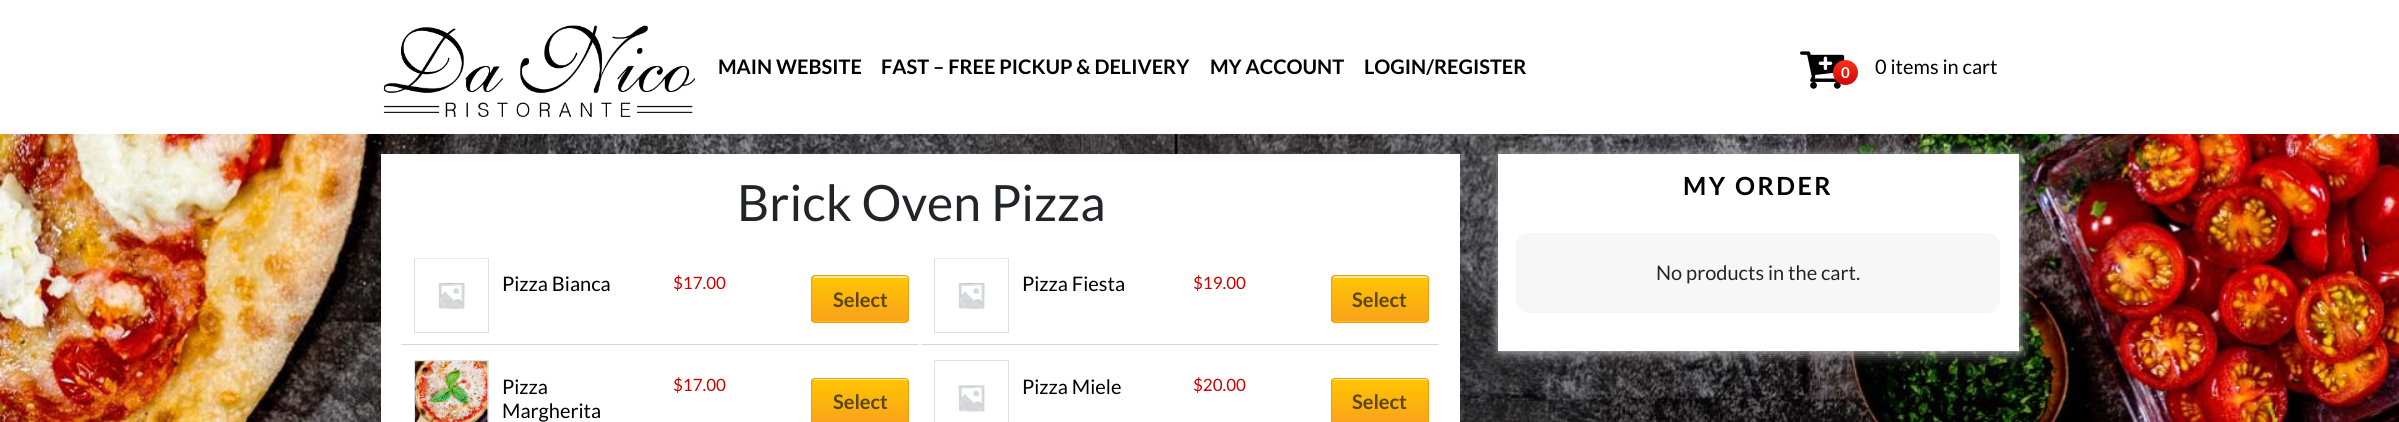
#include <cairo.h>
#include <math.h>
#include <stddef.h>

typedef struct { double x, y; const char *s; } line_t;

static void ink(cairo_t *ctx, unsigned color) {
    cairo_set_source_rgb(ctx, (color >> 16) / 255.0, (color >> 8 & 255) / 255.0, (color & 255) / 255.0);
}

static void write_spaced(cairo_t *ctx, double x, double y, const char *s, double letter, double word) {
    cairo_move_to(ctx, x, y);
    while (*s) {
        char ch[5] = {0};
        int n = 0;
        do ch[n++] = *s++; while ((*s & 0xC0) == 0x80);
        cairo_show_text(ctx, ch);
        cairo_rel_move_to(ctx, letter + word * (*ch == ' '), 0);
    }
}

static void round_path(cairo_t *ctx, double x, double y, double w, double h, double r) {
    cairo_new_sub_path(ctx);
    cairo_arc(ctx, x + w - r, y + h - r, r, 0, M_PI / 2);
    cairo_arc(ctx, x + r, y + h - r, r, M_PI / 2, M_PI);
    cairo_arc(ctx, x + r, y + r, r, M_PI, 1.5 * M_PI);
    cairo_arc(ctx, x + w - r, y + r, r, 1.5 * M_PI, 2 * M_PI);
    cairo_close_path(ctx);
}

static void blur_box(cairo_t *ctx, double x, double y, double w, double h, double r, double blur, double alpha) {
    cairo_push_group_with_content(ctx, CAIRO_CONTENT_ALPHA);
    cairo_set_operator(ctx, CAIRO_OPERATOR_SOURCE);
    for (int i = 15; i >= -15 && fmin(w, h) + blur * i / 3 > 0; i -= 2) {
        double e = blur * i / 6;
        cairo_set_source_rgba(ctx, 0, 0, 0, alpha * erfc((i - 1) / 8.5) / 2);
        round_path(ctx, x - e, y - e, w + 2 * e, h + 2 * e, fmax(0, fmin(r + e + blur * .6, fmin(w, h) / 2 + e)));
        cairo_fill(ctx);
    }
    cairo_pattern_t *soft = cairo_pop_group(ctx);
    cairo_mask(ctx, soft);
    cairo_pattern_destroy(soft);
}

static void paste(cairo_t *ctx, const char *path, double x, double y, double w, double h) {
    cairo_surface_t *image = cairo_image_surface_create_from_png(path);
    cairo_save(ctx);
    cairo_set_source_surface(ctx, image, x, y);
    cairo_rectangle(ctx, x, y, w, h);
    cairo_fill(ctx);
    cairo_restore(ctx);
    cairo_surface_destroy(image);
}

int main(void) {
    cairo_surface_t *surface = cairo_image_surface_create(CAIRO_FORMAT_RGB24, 2399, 422);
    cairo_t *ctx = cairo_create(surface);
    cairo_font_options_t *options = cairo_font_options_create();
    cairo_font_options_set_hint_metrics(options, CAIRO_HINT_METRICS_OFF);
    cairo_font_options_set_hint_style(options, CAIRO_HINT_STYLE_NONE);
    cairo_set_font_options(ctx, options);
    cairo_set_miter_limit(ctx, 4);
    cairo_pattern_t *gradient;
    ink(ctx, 0xFFFFFF);
    cairo_paint(ctx);
    paste(ctx, "media/1.png", 0, 134, 2399, 288);
    paste(ctx, "media/2.png", 383, 25, 312, 92);
    cairo_select_font_face(ctx, "Lato", CAIRO_FONT_SLANT_NORMAL, CAIRO_FONT_WEIGHT_BOLD);
    cairo_set_font_size(ctx, 20);
    ink(ctx, 0x000000);
    {
        static const line_t items[] = {
            {718, 74, "MAIN WEBSITE"},
            {881, 74, "FAST – FREE PICKUP & DELIVERY"},
            {1210, 74, "MY ACCOUNT"},
            {1364, 74, "LOGIN/REGISTER"},
        };
        for (size_t i = 0; i < sizeof items / sizeof *items; i++) {
            cairo_move_to(ctx, items[i].x, items[i].y);
            cairo_show_text(ctx, items[i].s);
        }
    }
    paste(ctx, "media/3.png", 1800, 51, 45, 38);
    gradient = cairo_pattern_create_linear(1845, 60, 1845, 85);
    cairo_pattern_add_color_stop_rgba(gradient, 0, 1, 0.188, 0.098, 1);
    cairo_pattern_add_color_stop_rgba(gradient, 1, 0.812, 0.016, 0.016, 1);
    cairo_set_source(ctx, gradient);
    cairo_pattern_destroy(gradient);
    cairo_arc(ctx, 1845.5, 72.5, 12.5, 0, 2 * M_PI);
    cairo_fill(ctx);
    cairo_set_font_size(ctx, 15);
    ink(ctx, 0xFFFFFF);
    cairo_move_to(ctx, 1841, 78);
    cairo_show_text(ctx, "0");
    cairo_select_font_face(ctx, "Lato", CAIRO_FONT_SLANT_NORMAL, CAIRO_FONT_WEIGHT_NORMAL);
    cairo_set_font_size(ctx, 20);
    ink(ctx, 0x000000);
    cairo_move_to(ctx, 1875, 74);
    cairo_show_text(ctx, "0 items in cart");
    ink(ctx, 0xFFFFFF);
    cairo_rectangle(ctx, 381, 154, 1079, 268);
    cairo_fill(ctx);
    cairo_set_font_size(ctx, 50);
    ink(ctx, 0x212529);
    cairo_move_to(ctx, 737, 221);
    cairo_show_text(ctx, "Brick Oven Pizza");
    ink(ctx, 0xD6D6D6);
    cairo_rectangle(ctx, 401, 344, 518, 1);
    cairo_fill(ctx);
    cairo_rectangle(ctx, 414.5, 258.5, 74, 74);
    ink(ctx, 0xE0E0E0);
    cairo_set_line_width(ctx, 1);
    cairo_stroke(ctx);
    paste(ctx, "media/4.png", 415, 258, 72, 51);
    cairo_set_font_size(ctx, 20);
    ink(ctx, 0x000000);
    cairo_move_to(ctx, 502, 291);
    cairo_show_text(ctx, "Pizza Bianca");
    cairo_set_font_size(ctx, 17);
    ink(ctx, 0xCC0000);
    cairo_move_to(ctx, 673, 289);
    cairo_show_text(ctx, "$17.00");
    cairo_save(ctx);
    round_path(ctx, 811, 275, 98, 48, 4);
    cairo_clip(ctx);
    gradient = cairo_pattern_create_linear(860, 321, 860, 276);
    cairo_pattern_add_color_stop_rgba(gradient, 0, 0.98, 0.635, 0.106, 1);
    cairo_pattern_add_color_stop_rgba(gradient, 1, 1, 0.776, 0, 1);
    cairo_set_source(ctx, gradient);
    cairo_pattern_destroy(gradient);
    cairo_rectangle(ctx, 811, 276, 98, 45);
    cairo_fill(ctx);
    gradient = cairo_pattern_create_linear(860, 366, 860, 321);
    cairo_pattern_add_color_stop_rgba(gradient, 0, 0.98, 0.635, 0.106, 1);
    cairo_pattern_add_color_stop_rgba(gradient, 1, 1, 0.776, 0, 1);
    cairo_set_source(ctx, gradient);
    cairo_pattern_destroy(gradient);
    cairo_rectangle(ctx, 811, 321, 98, 2);
    cairo_fill(ctx);
    cairo_restore(ctx);
    cairo_set_source_rgba(ctx, 1, 1, 1, 0.6);
    cairo_new_path(ctx);
    cairo_move_to(ctx, 815, 278);
    cairo_line_to(ctx, 905, 278);
    cairo_curve_to(ctx, 906, 278, 908, 279, 908, 280);
    cairo_curve_to(ctx, 908, 272, 896, 276, 890, 276);
    cairo_line_to(ctx, 830, 276);
    cairo_curve_to(ctx, 825, 276, 813, 273, 813, 279);
    cairo_close_path(ctx);
    cairo_fill(ctx);
    round_path(ctx, 811.5, 275.5, 97, 47, 3.5);
    ink(ctx, 0xEC9A10);
    cairo_stroke(ctx);
    cairo_select_font_face(ctx, "Lato", CAIRO_FONT_SLANT_NORMAL, CAIRO_FONT_WEIGHT_BOLD);
    cairo_set_font_size(ctx, 20);
    ink(ctx, 0x5A460A);
    cairo_move_to(ctx, 833, 307);
    cairo_show_text(ctx, "Select");
    ink(ctx, 0xD6D6D6);
    cairo_rectangle(ctx, 921, 344, 518, 1);
    cairo_fill(ctx);
    cairo_rectangle(ctx, 934.5, 258.5, 74, 74);
    ink(ctx, 0xE0E0E0);
    cairo_stroke(ctx);
    paste(ctx, "media/4.png", 935, 258, 72, 51);
    cairo_select_font_face(ctx, "Lato", CAIRO_FONT_SLANT_NORMAL, CAIRO_FONT_WEIGHT_NORMAL);
    ink(ctx, 0x000000);
    cairo_move_to(ctx, 1022, 291);
    cairo_show_text(ctx, "Pizza Fiesta");
    cairo_set_font_size(ctx, 17);
    ink(ctx, 0xCC0000);
    cairo_move_to(ctx, 1193, 289);
    cairo_show_text(ctx, "$19.00");
    cairo_save(ctx);
    round_path(ctx, 1331, 275, 98, 48, 4);
    cairo_clip(ctx);
    gradient = cairo_pattern_create_linear(1380, 321, 1380, 276);
    cairo_pattern_add_color_stop_rgba(gradient, 0, 0.98, 0.635, 0.106, 1);
    cairo_pattern_add_color_stop_rgba(gradient, 1, 1, 0.776, 0, 1);
    cairo_set_source(ctx, gradient);
    cairo_pattern_destroy(gradient);
    cairo_rectangle(ctx, 1331, 276, 98, 45);
    cairo_fill(ctx);
    gradient = cairo_pattern_create_linear(1380, 366, 1380, 321);
    cairo_pattern_add_color_stop_rgba(gradient, 0, 0.98, 0.635, 0.106, 1);
    cairo_pattern_add_color_stop_rgba(gradient, 1, 1, 0.776, 0, 1);
    cairo_set_source(ctx, gradient);
    cairo_pattern_destroy(gradient);
    cairo_rectangle(ctx, 1331, 321, 98, 2);
    cairo_fill(ctx);
    cairo_restore(ctx);
    cairo_set_source_rgba(ctx, 1, 1, 1, 0.6);
    cairo_new_path(ctx);
    cairo_move_to(ctx, 1335, 278);
    cairo_line_to(ctx, 1425, 278);
    cairo_curve_to(ctx, 1426, 278, 1428, 279, 1428, 280);
    cairo_curve_to(ctx, 1428, 272, 1416, 276, 1410, 276);
    cairo_line_to(ctx, 1350, 276);
    cairo_curve_to(ctx, 1345, 276, 1333, 273, 1333, 279);
    cairo_close_path(ctx);
    cairo_fill(ctx);
    round_path(ctx, 1331.5, 275.5, 97, 47, 3.5);
    ink(ctx, 0xEC9A10);
    cairo_stroke(ctx);
    cairo_select_font_face(ctx, "Lato", CAIRO_FONT_SLANT_NORMAL, CAIRO_FONT_WEIGHT_BOLD);
    cairo_set_font_size(ctx, 20);
    ink(ctx, 0x5A460A);
    cairo_move_to(ctx, 1352, 307);
    cairo_show_text(ctx, "Select");
    cairo_rectangle(ctx, 414.5, 360.5, 74, 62);
    ink(ctx, 0xE0E0E0);
    cairo_stroke(ctx);
    paste(ctx, "media/5.png", 415, 361, 73, 61);
    cairo_select_font_face(ctx, "Lato", CAIRO_FONT_SLANT_NORMAL, CAIRO_FONT_WEIGHT_NORMAL);
    ink(ctx, 0x000000);
    cairo_move_to(ctx, 502, 394);
    cairo_show_text(ctx, "Pizza");
    cairo_move_to(ctx, 502, 418);
    cairo_show_text(ctx, "Margherita");
    cairo_set_font_size(ctx, 17);
    ink(ctx, 0xCC0000);
    cairo_move_to(ctx, 673, 391);
    cairo_show_text(ctx, "$17.00");
    cairo_save(ctx);
    round_path(ctx, 811, 378, 98, 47, 4);
    cairo_clip(ctx);
    gradient = cairo_pattern_create_linear(860, 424, 860, 379);
    cairo_pattern_add_color_stop_rgba(gradient, 0, 0.98, 0.635, 0.106, 1);
    cairo_pattern_add_color_stop_rgba(gradient, 1, 1, 0.776, 0, 1);
    cairo_set_source(ctx, gradient);
    cairo_pattern_destroy(gradient);
    cairo_rectangle(ctx, 811, 379, 98, 43);
    cairo_fill(ctx);
    cairo_restore(ctx);
    ink(ctx, 0xFFE899);
    cairo_new_path(ctx);
    cairo_move_to(ctx, 815, 380);
    cairo_line_to(ctx, 905, 380);
    cairo_curve_to(ctx, 906, 380, 908, 381, 908, 382);
    cairo_curve_to(ctx, 908, 380, 907, 379, 906, 379);
    cairo_line_to(ctx, 816, 379);
    cairo_curve_to(ctx, 814, 379, 814, 380, 813, 381);
    cairo_close_path(ctx);
    cairo_fill(ctx);
    round_path(ctx, 811.5, 378.5, 97, 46, 3.5);
    ink(ctx, 0xEC9A10);
    cairo_stroke(ctx);
    cairo_select_font_face(ctx, "Lato", CAIRO_FONT_SLANT_NORMAL, CAIRO_FONT_WEIGHT_BOLD);
    cairo_set_font_size(ctx, 20);
    ink(ctx, 0x5A460A);
    cairo_move_to(ctx, 833, 409);
    cairo_show_text(ctx, "Select");
    cairo_rectangle(ctx, 934.5, 360.5, 74, 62);
    ink(ctx, 0xE0E0E0);
    cairo_stroke(ctx);
    paste(ctx, "media/6.png", 958, 385, 27, 27);
    cairo_select_font_face(ctx, "Lato", CAIRO_FONT_SLANT_NORMAL, CAIRO_FONT_WEIGHT_NORMAL);
    ink(ctx, 0x000000);
    cairo_move_to(ctx, 1022, 394);
    cairo_show_text(ctx, "Pizza Miele");
    cairo_set_font_size(ctx, 17);
    ink(ctx, 0xCC0000);
    cairo_move_to(ctx, 1193, 391);
    cairo_show_text(ctx, "$20.00");
    cairo_save(ctx);
    round_path(ctx, 1331, 378, 98, 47, 4);
    cairo_clip(ctx);
    gradient = cairo_pattern_create_linear(1380, 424, 1380, 379);
    cairo_pattern_add_color_stop_rgba(gradient, 0, 0.98, 0.635, 0.106, 1);
    cairo_pattern_add_color_stop_rgba(gradient, 1, 1, 0.776, 0, 1);
    cairo_set_source(ctx, gradient);
    cairo_pattern_destroy(gradient);
    cairo_rectangle(ctx, 1331, 379, 98, 43);
    cairo_fill(ctx);
    cairo_restore(ctx);
    ink(ctx, 0xFFE899);
    cairo_new_path(ctx);
    cairo_move_to(ctx, 1335, 380);
    cairo_line_to(ctx, 1425, 380);
    cairo_curve_to(ctx, 1426, 380, 1428, 381, 1428, 382);
    cairo_curve_to(ctx, 1428, 380, 1427, 379, 1426, 379);
    cairo_line_to(ctx, 1336, 379);
    cairo_curve_to(ctx, 1334, 379, 1334, 380, 1333, 381);
    cairo_close_path(ctx);
    cairo_fill(ctx);
    round_path(ctx, 1331.5, 378.5, 97, 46, 3.5);
    ink(ctx, 0xEC9A10);
    cairo_stroke(ctx);
    cairo_select_font_face(ctx, "Lato", CAIRO_FONT_SLANT_NORMAL, CAIRO_FONT_WEIGHT_BOLD);
    cairo_set_font_size(ctx, 20);
    ink(ctx, 0x5A460A);
    cairo_move_to(ctx, 1352, 409);
    cairo_show_text(ctx, "Select");
    ink(ctx, 0xBBBBBB);
    blur_box(ctx, 1499, 155, 521, 198, 0, 6, 1);
    ink(ctx, 0xFFFFFF);
    cairo_rectangle(ctx, 1498, 154, 521, 197);
    cairo_fill(ctx);
    cairo_set_font_size(ctx, 25);
    ink(ctx, 0x000000);
    write_spaced(ctx, 1683, 195, "MY ORDER", 2.5, 0);
    ink(ctx, 0xF7F7F7);
    round_path(ctx, 1516, 233, 484, 80, 13);
    cairo_fill(ctx);
    cairo_select_font_face(ctx, "Lato", CAIRO_FONT_SLANT_NORMAL, CAIRO_FONT_WEIGHT_NORMAL);
    cairo_set_font_size(ctx, 20);
    ink(ctx, 0x212529);
    cairo_move_to(ctx, 1656, 280);
    cairo_show_text(ctx, "No products in the cart.");
    cairo_surface_write_to_png(surface, "image.png");
    cairo_font_options_destroy(options);
    cairo_destroy(ctx);
    cairo_surface_destroy(surface);
    return 0;
}
